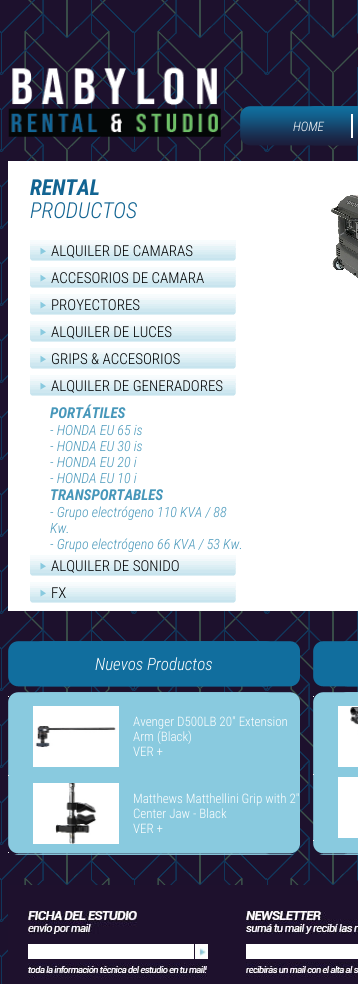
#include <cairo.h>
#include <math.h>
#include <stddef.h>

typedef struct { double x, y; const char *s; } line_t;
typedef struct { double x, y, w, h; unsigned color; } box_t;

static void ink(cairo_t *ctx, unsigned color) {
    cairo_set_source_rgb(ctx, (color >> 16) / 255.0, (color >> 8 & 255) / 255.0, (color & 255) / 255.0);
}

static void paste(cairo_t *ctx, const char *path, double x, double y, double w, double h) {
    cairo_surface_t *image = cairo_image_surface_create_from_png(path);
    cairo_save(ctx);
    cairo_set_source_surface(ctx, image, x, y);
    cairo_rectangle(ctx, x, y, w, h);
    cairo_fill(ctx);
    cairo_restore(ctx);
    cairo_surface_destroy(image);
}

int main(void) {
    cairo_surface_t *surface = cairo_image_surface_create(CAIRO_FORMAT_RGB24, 358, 984);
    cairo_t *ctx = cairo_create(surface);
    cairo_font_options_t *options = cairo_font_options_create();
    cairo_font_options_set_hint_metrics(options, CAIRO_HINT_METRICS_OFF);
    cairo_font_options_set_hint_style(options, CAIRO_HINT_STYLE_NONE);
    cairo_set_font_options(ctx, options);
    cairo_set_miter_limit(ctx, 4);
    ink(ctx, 0xFFFFFF);
    cairo_paint(ctx);
    paste(ctx, "media/1.png", 0, 0, 358, 984);
    paste(ctx, "media/2.png", 8, 67, 213, 70);
    paste(ctx, "media/3.png", 240, 106, 118, 40);
    cairo_select_font_face(ctx, "Roboto Condensed Light", CAIRO_FONT_SLANT_ITALIC, CAIRO_FONT_WEIGHT_NORMAL);
    cairo_set_font_size(ctx, 13);
    ink(ctx, 0xFFFFFF);
    cairo_move_to(ctx, 293, 131);
    cairo_show_text(ctx, "HOME");
    cairo_rectangle(ctx, 351, 114, 2, 24);
    cairo_fill(ctx);
    cairo_rectangle(ctx, 8, 161, 350, 450);
    cairo_fill(ctx);
    cairo_select_font_face(ctx, "Roboto Condensed", CAIRO_FONT_SLANT_ITALIC, CAIRO_FONT_WEIGHT_BOLD);
    cairo_set_font_size(ctx, 22);
    ink(ctx, 0x126492);
    cairo_move_to(ctx, 30, 195);
    cairo_show_text(ctx, "RENTAL");
    cairo_select_font_face(ctx, "Roboto Condensed Light", CAIRO_FONT_SLANT_ITALIC, CAIRO_FONT_WEIGHT_NORMAL);
    cairo_move_to(ctx, 30, 218);
    cairo_show_text(ctx, "PRODUCTOS");
    paste(ctx, "media/4.png", 30, 240, 206, 21);
    paste(ctx, "media/5.png", 40, 247, 6, 8);
    cairo_select_font_face(ctx, "Roboto Condensed Light", CAIRO_FONT_SLANT_NORMAL, CAIRO_FONT_WEIGHT_NORMAL);
    cairo_set_font_size(ctx, 15);
    ink(ctx, 0x000000);
    cairo_move_to(ctx, 51, 256);
    cairo_show_text(ctx, "ALQUILER DE CAMARAS");
    paste(ctx, "media/4.png", 30, 267, 206, 21);
    paste(ctx, "media/5.png", 40, 274, 6, 8);
    cairo_move_to(ctx, 51, 283);
    cairo_show_text(ctx, "ACCESORIOS DE CAMARA");
    paste(ctx, "media/4.png", 30, 294, 206, 21);
    paste(ctx, "media/5.png", 40, 301, 6, 8);
    cairo_move_to(ctx, 51, 310);
    cairo_show_text(ctx, "PROYECTORES");
    paste(ctx, "media/4.png", 30, 321, 206, 21);
    paste(ctx, "media/5.png", 40, 328, 6, 8);
    cairo_move_to(ctx, 51, 337);
    cairo_show_text(ctx, "ALQUILER DE LUCES");
    paste(ctx, "media/4.png", 30, 348, 206, 21);
    paste(ctx, "media/5.png", 40, 355, 6, 8);
    cairo_move_to(ctx, 51, 364);
    cairo_show_text(ctx, "GRIPS & ACCESORIOS");
    paste(ctx, "media/4.png", 30, 375, 206, 21);
    paste(ctx, "media/5.png", 40, 382, 6, 8);
    cairo_move_to(ctx, 51, 391);
    cairo_show_text(ctx, "ALQUILER DE GENERADORES");
    cairo_select_font_face(ctx, "Roboto Condensed", CAIRO_FONT_SLANT_ITALIC, CAIRO_FONT_WEIGHT_BOLD);
    ink(ctx, 0x4797BA);
    cairo_move_to(ctx, 50, 418);
    cairo_show_text(ctx, "PORTÁTILES");
    cairo_select_font_face(ctx, "Roboto Condensed Light", CAIRO_FONT_SLANT_ITALIC, CAIRO_FONT_WEIGHT_NORMAL);
    cairo_set_font_size(ctx, 14);
    {
        static const line_t items[] = {
            {50, 435, "- HONDA EU 65 is"},
            {50, 451, "- HONDA EU 30 is"},
            {50, 467, "- HONDA EU 20 i"},
            {50, 483, "- HONDA EU 10 i"},
        };
        for (size_t i = 0; i < sizeof items / sizeof *items; i++) {
            cairo_move_to(ctx, items[i].x, items[i].y);
            cairo_show_text(ctx, items[i].s);
        }
    }
    cairo_select_font_face(ctx, "Roboto Condensed", CAIRO_FONT_SLANT_ITALIC, CAIRO_FONT_WEIGHT_BOLD);
    cairo_set_font_size(ctx, 15);
    cairo_move_to(ctx, 50, 500);
    cairo_show_text(ctx, "TRANSPORTABLES");
    cairo_select_font_face(ctx, "Roboto Condensed Light", CAIRO_FONT_SLANT_ITALIC, CAIRO_FONT_WEIGHT_NORMAL);
    cairo_set_font_size(ctx, 14);
    {
        static const line_t items[] = {
            {50, 517, "- Grupo electrógeno 110 KVA / 88"},
            {50, 533, "Kw."},
            {50, 549, "- Grupo electrógeno 66 KVA / 53 Kw."},
        };
        for (size_t i = 0; i < sizeof items / sizeof *items; i++) {
            cairo_move_to(ctx, items[i].x, items[i].y);
            cairo_show_text(ctx, items[i].s);
        }
    }
    paste(ctx, "media/4.png", 30, 555, 206, 21);
    paste(ctx, "media/5.png", 40, 562, 6, 8);
    cairo_select_font_face(ctx, "Roboto Condensed Light", CAIRO_FONT_SLANT_NORMAL, CAIRO_FONT_WEIGHT_NORMAL);
    cairo_set_font_size(ctx, 15);
    ink(ctx, 0x000000);
    cairo_move_to(ctx, 51, 571);
    cairo_show_text(ctx, "ALQUILER DE SONIDO");
    paste(ctx, "media/4.png", 30, 582, 206, 21);
    paste(ctx, "media/5.png", 40, 589, 6, 8);
    cairo_move_to(ctx, 51, 598);
    cairo_show_text(ctx, "FX");
    paste(ctx, "media/6.png", 331, 194, 27, 85);
    paste(ctx, "media/7.png", 8, 641, 292, 46);
    cairo_select_font_face(ctx, "Roboto Condensed Light", CAIRO_FONT_SLANT_ITALIC, CAIRO_FONT_WEIGHT_NORMAL);
    cairo_set_font_size(ctx, 17);
    ink(ctx, 0xFFFFFF);
    cairo_move_to(ctx, 95, 670);
    cairo_show_text(ctx, "Nuevos Productos");
    paste(ctx, "media/8.png", 313, 641, 45, 46);
    paste(ctx, "media/9.png", 8, 692, 292, 163);
    cairo_rectangle(ctx, 8, 696, 1, 1);
    cairo_fill(ctx);
    paste(ctx, "media/10.png", 33, 706, 86, 61);
    cairo_select_font_face(ctx, "Roboto Condensed Light", CAIRO_FONT_SLANT_NORMAL, CAIRO_FONT_WEIGHT_NORMAL);
    cairo_set_font_size(ctx, 13);
    {
        static const line_t items[] = {
            {133, 726, "Avenger D500LB 20\" Extension"},
            {133, 741, "Arm (Black)"},
            {133, 756, "VER +"},
        };
        for (size_t i = 0; i < sizeof items / sizeof *items; i++) {
            cairo_move_to(ctx, items[i].x, items[i].y);
            cairo_show_text(ctx, items[i].s);
        }
    }
    cairo_rectangle(ctx, 8, 775, 1, 1);
    cairo_fill(ctx);
    paste(ctx, "media/11.png", 33, 783, 86, 61);
    {
        static const line_t items[] = {
            {133, 803, "Matthews Matthellini Grip with 2\""},
            {133, 818, "Center Jaw - Black"},
            {133, 833, "VER +"},
        };
        for (size_t i = 0; i < sizeof items / sizeof *items; i++) {
            cairo_move_to(ctx, items[i].x, items[i].y);
            cairo_show_text(ctx, items[i].s);
        }
    }
    cairo_rectangle(ctx, 8, 852, 1, 1);
    cairo_fill(ctx);
    paste(ctx, "media/12.png", 313, 692, 45, 163);
    cairo_rectangle(ctx, 313, 696, 1, 1);
    cairo_fill(ctx);
    paste(ctx, "media/13.png", 338, 706, 20, 61);
    {
        static const box_t items[] = {
            {313, 774, 1, 1, 0xFFFFFF},
            {338, 777, 20, 61, 0xFFFFFF},
            {313, 840, 1, 1, 0xFFFFFF},
            {8, 885, 350, 99, 0x1E112D},
        };
        for (size_t i = 0; i < sizeof items / sizeof *items; i++) {
            ink(ctx, items[i].color);
            cairo_rectangle(ctx, items[i].x, items[i].y, items[i].w, items[i].h);
            cairo_fill(ctx);
        }
    }
    paste(ctx, "media/14.png", 28, 911, 109, 23);
    ink(ctx, 0xFFFFFF);
    cairo_rectangle(ctx, 28, 944, 166, 15);
    cairo_fill(ctx);
    paste(ctx, "media/15.png", 195, 944, 13, 15);
    paste(ctx, "media/16.png", 28, 963, 179, 16);
    paste(ctx, "media/17.png", 246, 911, 112, 23);
    cairo_rectangle(ctx, 246, 944, 112, 15);
    cairo_fill(ctx);
    paste(ctx, "media/18.png", 246, 962, 112, 16);
    cairo_surface_write_to_png(surface, "image.png");
    cairo_font_options_destroy(options);
    cairo_destroy(ctx);
    cairo_surface_destroy(surface);
    return 0;
}
